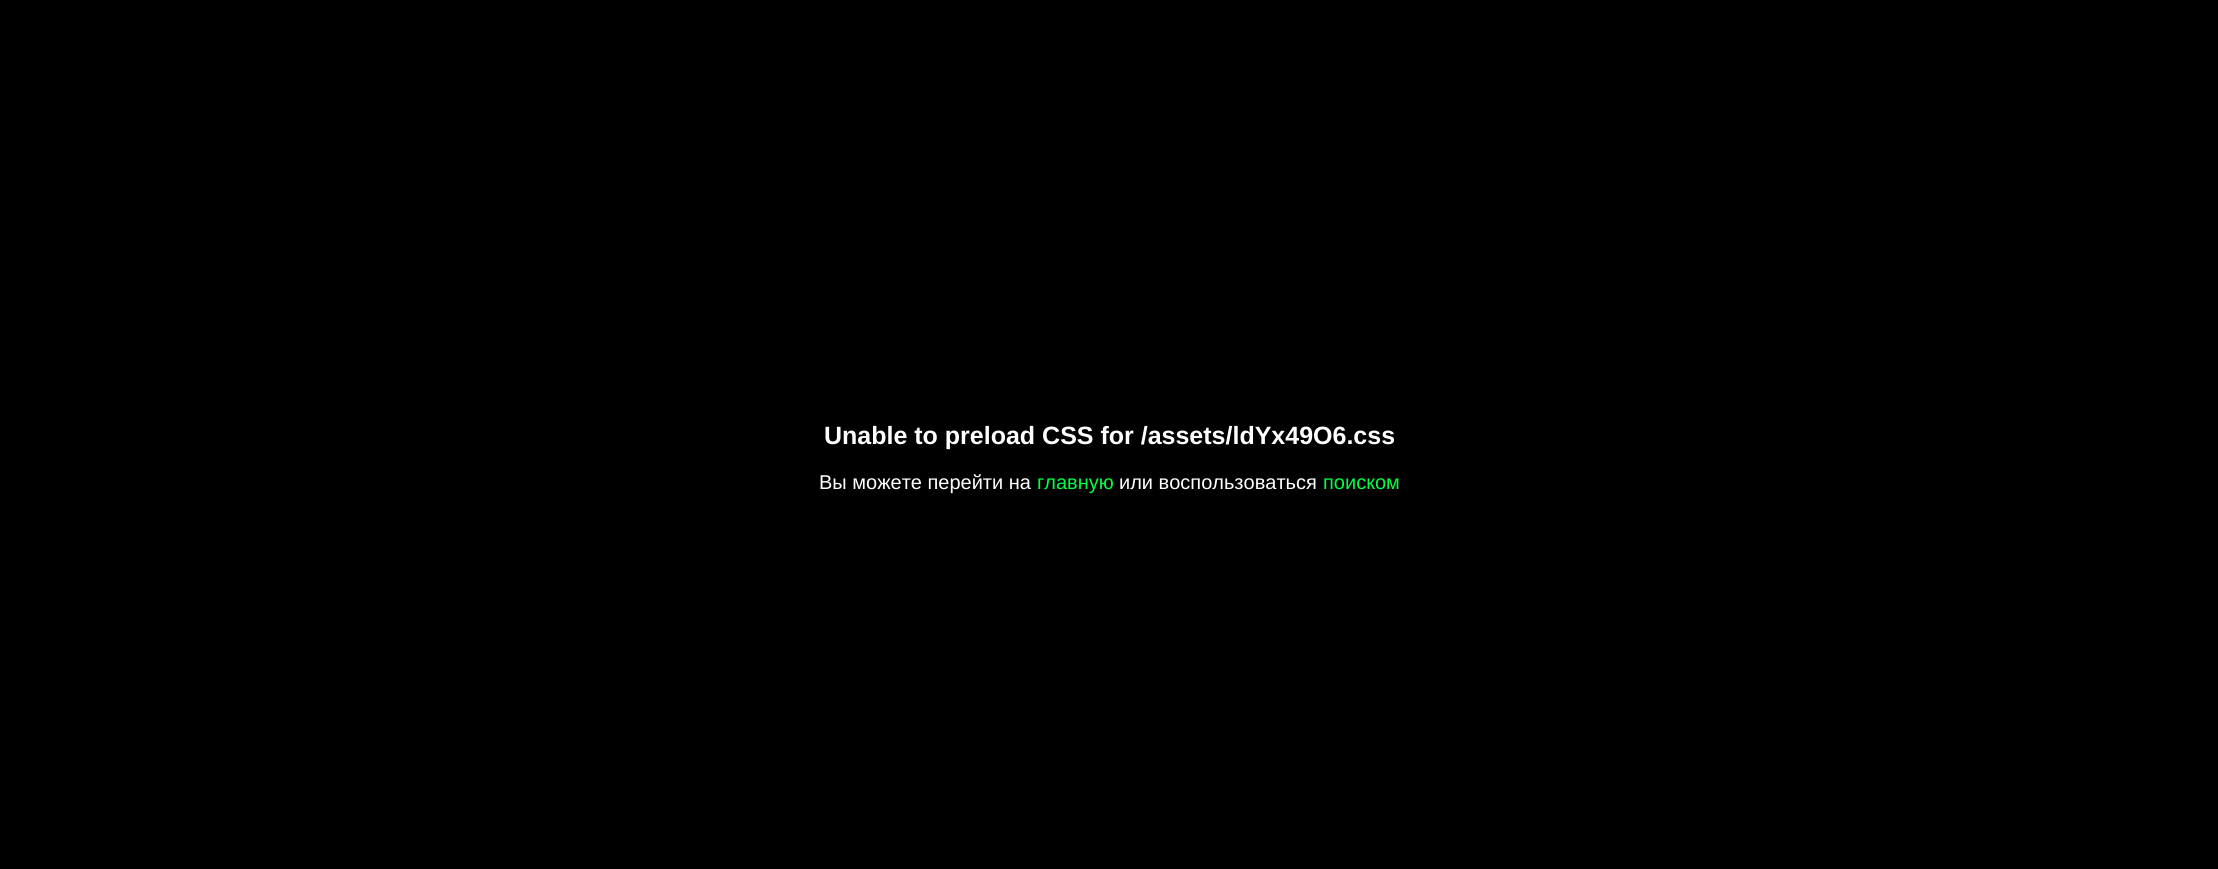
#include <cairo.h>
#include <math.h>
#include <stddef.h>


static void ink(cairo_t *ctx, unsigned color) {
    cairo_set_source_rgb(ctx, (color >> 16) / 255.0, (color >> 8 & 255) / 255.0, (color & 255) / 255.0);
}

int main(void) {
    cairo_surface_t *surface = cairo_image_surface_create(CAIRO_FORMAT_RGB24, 2218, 869);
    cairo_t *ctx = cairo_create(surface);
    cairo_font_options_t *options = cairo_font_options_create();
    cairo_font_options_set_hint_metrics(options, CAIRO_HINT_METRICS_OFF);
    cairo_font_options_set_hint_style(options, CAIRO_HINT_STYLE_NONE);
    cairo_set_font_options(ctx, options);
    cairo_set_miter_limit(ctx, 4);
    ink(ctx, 0x000000);
    cairo_paint(ctx);
    cairo_select_font_face(ctx, "Liberation Sans", CAIRO_FONT_SLANT_NORMAL, CAIRO_FONT_WEIGHT_BOLD);
    cairo_set_font_size(ctx, 25);
    ink(ctx, 0xFFFFFF);
    cairo_move_to(ctx, 824, 444);
    cairo_show_text(ctx, "Unable to preload CSS for /assets/ldYx49O6.css");
    cairo_select_font_face(ctx, "Liberation Sans", CAIRO_FONT_SLANT_NORMAL, CAIRO_FONT_WEIGHT_NORMAL);
    cairo_set_font_size(ctx, 20);
    cairo_move_to(ctx, 819, 489);
    cairo_show_text(ctx, "Вы можете перейти на");
    ink(ctx, 0x00FF44);
    cairo_move_to(ctx, 1037, 489);
    cairo_show_text(ctx, "главную");
    ink(ctx, 0xFFFFFF);
    cairo_move_to(ctx, 1119, 489);
    cairo_show_text(ctx, "или воспользоваться");
    ink(ctx, 0x00FF44);
    cairo_move_to(ctx, 1323, 489);
    cairo_show_text(ctx, "поиском");
    cairo_surface_write_to_png(surface, "image.png");
    cairo_font_options_destroy(options);
    cairo_destroy(ctx);
    cairo_surface_destroy(surface);
    return 0;
}
